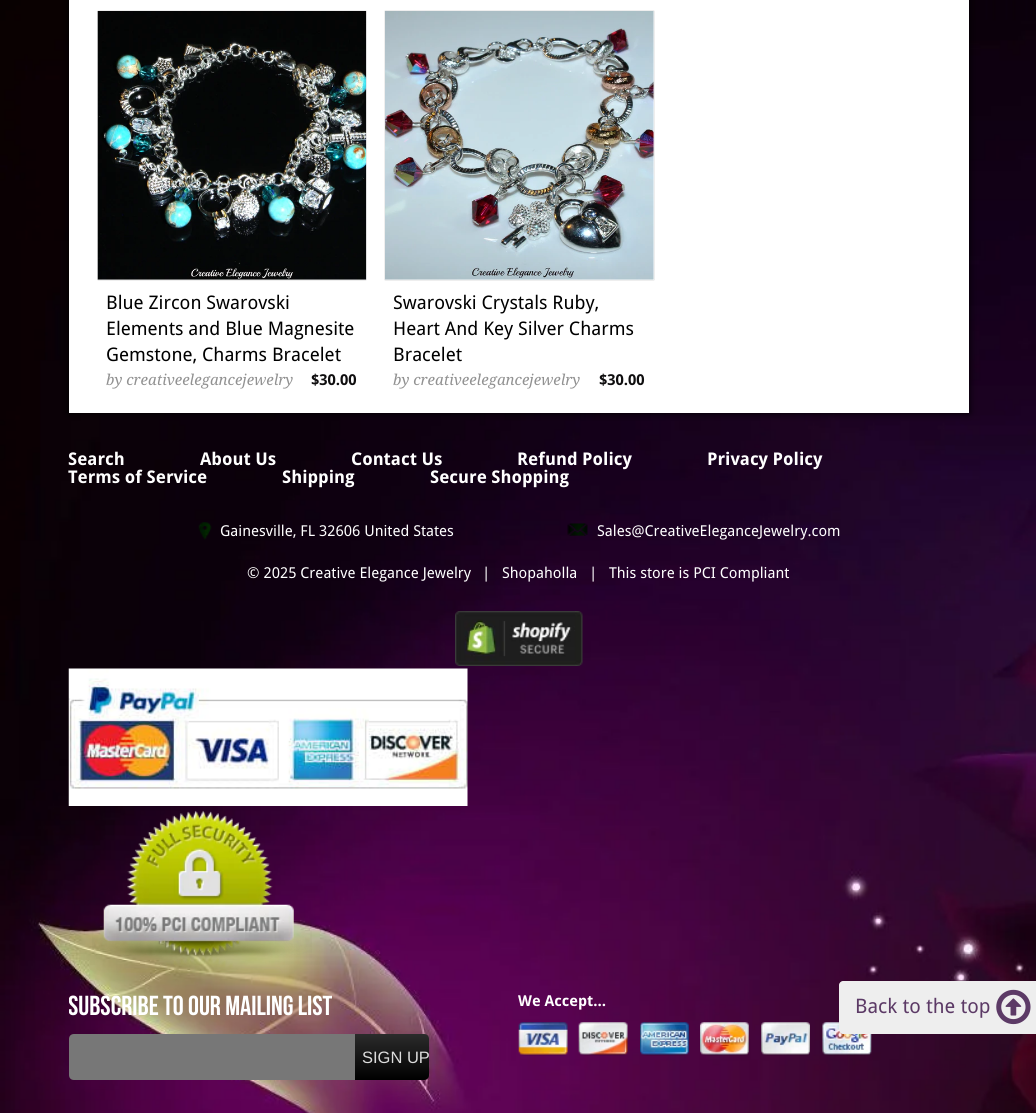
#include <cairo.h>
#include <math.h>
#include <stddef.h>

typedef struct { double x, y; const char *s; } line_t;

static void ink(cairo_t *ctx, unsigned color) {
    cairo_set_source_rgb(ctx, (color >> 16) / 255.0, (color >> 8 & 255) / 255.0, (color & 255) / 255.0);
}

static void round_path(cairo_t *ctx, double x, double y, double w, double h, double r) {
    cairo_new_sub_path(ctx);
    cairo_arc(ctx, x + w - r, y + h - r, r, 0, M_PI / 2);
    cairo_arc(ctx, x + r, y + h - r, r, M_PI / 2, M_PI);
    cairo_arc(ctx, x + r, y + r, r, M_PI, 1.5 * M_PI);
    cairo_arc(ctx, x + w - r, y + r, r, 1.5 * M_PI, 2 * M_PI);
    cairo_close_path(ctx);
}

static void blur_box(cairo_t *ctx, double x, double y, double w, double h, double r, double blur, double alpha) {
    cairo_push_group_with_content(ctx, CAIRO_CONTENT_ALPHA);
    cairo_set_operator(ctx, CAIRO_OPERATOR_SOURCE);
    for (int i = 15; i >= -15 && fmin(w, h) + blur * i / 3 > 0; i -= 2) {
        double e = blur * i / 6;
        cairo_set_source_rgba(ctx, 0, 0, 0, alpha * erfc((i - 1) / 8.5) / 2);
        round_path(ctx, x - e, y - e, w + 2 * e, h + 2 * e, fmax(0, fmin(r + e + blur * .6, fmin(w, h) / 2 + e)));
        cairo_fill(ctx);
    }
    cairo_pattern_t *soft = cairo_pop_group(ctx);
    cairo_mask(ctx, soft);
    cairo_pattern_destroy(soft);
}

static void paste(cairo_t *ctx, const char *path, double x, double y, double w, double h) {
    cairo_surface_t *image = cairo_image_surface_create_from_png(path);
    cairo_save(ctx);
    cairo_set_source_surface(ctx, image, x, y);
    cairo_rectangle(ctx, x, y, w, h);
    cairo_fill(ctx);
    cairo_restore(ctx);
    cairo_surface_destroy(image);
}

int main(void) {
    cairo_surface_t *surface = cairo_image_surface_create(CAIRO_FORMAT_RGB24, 1036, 1113);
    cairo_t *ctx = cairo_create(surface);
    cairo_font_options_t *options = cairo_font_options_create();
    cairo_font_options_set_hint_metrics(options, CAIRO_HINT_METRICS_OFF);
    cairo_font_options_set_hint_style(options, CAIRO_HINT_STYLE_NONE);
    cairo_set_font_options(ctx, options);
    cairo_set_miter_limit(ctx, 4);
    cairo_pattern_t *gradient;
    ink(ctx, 0xFFFFFF);
    cairo_paint(ctx);
    paste(ctx, "media/1.png", 0, 0, 1036, 1113);
    ink(ctx, 0x000000);
    blur_box(ctx, 69, -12, 900, 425, 0, 4, 1);
    ink(ctx, 0xFFFFFF);
    cairo_rectangle(ctx, 69, 0, 900, 413);
    cairo_fill(ctx);
    ink(ctx, 0xBBBBBB);
    blur_box(ctx, 98, 11, 268, 269, 0, 0.5, 1);
    ink(ctx, 0xFFFFFF);
    cairo_rectangle(ctx, 98, 279, 268, 1);
    cairo_fill(ctx);
    paste(ctx, "media/2.png", 97, 11, 270, 269);
    cairo_select_font_face(ctx, "Droid Sans", CAIRO_FONT_SLANT_NORMAL, CAIRO_FONT_WEIGHT_NORMAL);
    cairo_set_font_size(ctx, 18.75);
    ink(ctx, 0x000000);
    {
        static const line_t items[] = {
            {106, 309, "Blue Zircon Swarovski"},
            {106, 335, "Elements and Blue Magnesite"},
            {106, 361, "Gemstone, Charms Bracelet"},
        };
        for (size_t i = 0; i < sizeof items / sizeof *items; i++) {
            cairo_move_to(ctx, items[i].x, items[i].y);
            cairo_show_text(ctx, items[i].s);
        }
    }
    cairo_select_font_face(ctx, "Droid Serif", CAIRO_FONT_SLANT_ITALIC, CAIRO_FONT_WEIGHT_NORMAL);
    cairo_set_font_size(ctx, 15);
    ink(ctx, 0x919191);
    cairo_move_to(ctx, 106, 385);
    cairo_show_text(ctx, "by creativeelegancejewelry");
    cairo_select_font_face(ctx, "Droid Sans", CAIRO_FONT_SLANT_NORMAL, CAIRO_FONT_WEIGHT_BOLD);
    ink(ctx, 0x0F0E0F);
    cairo_move_to(ctx, 311, 385);
    cairo_show_text(ctx, "$30.00");
    ink(ctx, 0xBBBBBB);
    blur_box(ctx, 385, 11, 269, 269, 0, 0.5, 1);
    ink(ctx, 0xFFFFFF);
    cairo_rectangle(ctx, 385, 11, 269, 269);
    cairo_fill(ctx);
    paste(ctx, "media/3.png", 385, 11, 269, 269);
    cairo_select_font_face(ctx, "Droid Sans", CAIRO_FONT_SLANT_NORMAL, CAIRO_FONT_WEIGHT_NORMAL);
    cairo_set_font_size(ctx, 18.75);
    ink(ctx, 0x000000);
    {
        static const line_t items[] = {
            {393, 309, "Swarovski Crystals Ruby,"},
            {393, 335, "Heart And Key Silver Charms"},
            {393, 361, "Bracelet"},
        };
        for (size_t i = 0; i < sizeof items / sizeof *items; i++) {
            cairo_move_to(ctx, items[i].x, items[i].y);
            cairo_show_text(ctx, items[i].s);
        }
    }
    cairo_select_font_face(ctx, "Droid Serif", CAIRO_FONT_SLANT_ITALIC, CAIRO_FONT_WEIGHT_NORMAL);
    cairo_set_font_size(ctx, 15);
    ink(ctx, 0x919191);
    cairo_move_to(ctx, 393, 385);
    cairo_show_text(ctx, "by creativeelegancejewelry");
    cairo_select_font_face(ctx, "Droid Sans", CAIRO_FONT_SLANT_NORMAL, CAIRO_FONT_WEIGHT_BOLD);
    ink(ctx, 0x0F0E0F);
    cairo_move_to(ctx, 599, 385);
    cairo_show_text(ctx, "$30.00");
    cairo_set_font_size(ctx, 17.5);
    ink(ctx, 0xFFFFFF);
    {
        static const line_t items[] = {
            {68, 465, "Search"},
            {200, 465, "About Us"},
            {351, 465, "Contact Us"},
            {517, 465, "Refund Policy"},
            {707, 465, "Privacy Policy"},
            {68, 483, "Terms of Service"},
            {282, 483, "Shipping"},
            {430, 483, "Secure Shopping"},
        };
        for (size_t i = 0; i < sizeof items / sizeof *items; i++) {
            cairo_move_to(ctx, items[i].x, items[i].y);
            cairo_show_text(ctx, items[i].s);
        }
    }
    paste(ctx, "media/4.png", 198, 522, 14, 18);
    cairo_select_font_face(ctx, "Droid Sans", CAIRO_FONT_SLANT_NORMAL, CAIRO_FONT_WEIGHT_NORMAL);
    cairo_set_font_size(ctx, 15);
    cairo_move_to(ctx, 220, 536);
    cairo_show_text(ctx, "Gainesville, FL 32606 United States");
    paste(ctx, "media/5.png", 567, 523, 21, 13);
    {
        static const line_t items[] = {
            {597, 536, "Sales@CreativeEleganceJewelry.com"},
            {247, 578, "© 2025 Creative Elegance Jewelry"},
            {482, 578, "|"},
            {502, 578, "Shopaholla"},
            {589, 578, "|"},
            {609, 578, "This store is PCI Compliant"},
        };
        for (size_t i = 0; i < sizeof items / sizeof *items; i++) {
            cairo_move_to(ctx, items[i].x, items[i].y);
            cairo_show_text(ctx, items[i].s);
        }
    }
    paste(ctx, "media/6.png", 455, 611, 128, 55);
    paste(ctx, "media/7.png", 68, 668, 400, 138);
    paste(ctx, "media/8.png", 92, 810, 220, 163);
    cairo_save(ctx);
    cairo_rectangle(ctx, 69, 994, 450, 86);
    cairo_clip(ctx);
    cairo_select_font_face(ctx, "Bebas Neue", CAIRO_FONT_SLANT_NORMAL, CAIRO_FONT_WEIGHT_NORMAL);
    cairo_set_font_size(ctx, 27.5);
    cairo_move_to(ctx, 68, 1015);
    cairo_show_text(ctx, "Subscribe to our mailing list");
    cairo_restore(ctx);
    ink(ctx, 0x777777);
    cairo_new_path(ctx);
    cairo_move_to(ctx, 74, 1034);
    cairo_line_to(ctx, 355, 1034);
    cairo_line_to(ctx, 355, 1080);
    cairo_line_to(ctx, 74, 1080);
    cairo_curve_to(ctx, 71, 1080, 69, 1078, 69, 1075);
    cairo_line_to(ctx, 69, 1039);
    cairo_curve_to(ctx, 69, 1036, 71, 1034, 74, 1034);
    cairo_close_path(ctx);
    cairo_fill(ctx);
    gradient = cairo_pattern_create_linear(392, 1034, 392, 1080);
    cairo_pattern_add_color_stop_rgba(gradient, 0, 0.169, 0.169, 0.169, 1);
    cairo_pattern_add_color_stop_rgba(gradient, 1, 0, 0, 0, 1);
    cairo_set_source(ctx, gradient);
    cairo_pattern_destroy(gradient);
    cairo_new_path(ctx);
    cairo_move_to(ctx, 355, 1034);
    cairo_line_to(ctx, 424, 1034);
    cairo_curve_to(ctx, 427, 1034, 429, 1036, 429, 1039);
    cairo_line_to(ctx, 429, 1075);
    cairo_curve_to(ctx, 429, 1078, 427, 1080, 424, 1080);
    cairo_line_to(ctx, 355, 1080);
    cairo_close_path(ctx);
    cairo_fill(ctx);
    cairo_save(ctx);
    cairo_new_path(ctx);
    cairo_move_to(ctx, 355, 1034);
    cairo_line_to(ctx, 424, 1034);
    cairo_curve_to(ctx, 427, 1034, 429, 1036, 429, 1039);
    cairo_line_to(ctx, 429, 1075);
    cairo_curve_to(ctx, 429, 1078, 427, 1080, 424, 1080);
    cairo_line_to(ctx, 355, 1080);
    cairo_close_path(ctx);
    cairo_clip(ctx);
    cairo_select_font_face(ctx, "Liberation Sans", CAIRO_FONT_SLANT_NORMAL, CAIRO_FONT_WEIGHT_NORMAL);
    cairo_set_font_size(ctx, 16.5);
    ink(ctx, 0xDDDDDD);
    cairo_move_to(ctx, 362, 1063);
    cairo_show_text(ctx, "SIGN UP");
    cairo_restore(ctx);
    cairo_select_font_face(ctx, "Droid Sans", CAIRO_FONT_SLANT_NORMAL, CAIRO_FONT_WEIGHT_BOLD);
    ink(ctx, 0xFFFFFF);
    cairo_move_to(ctx, 518, 1006);
    cairo_show_text(ctx, "We Accept...");
    paste(ctx, "media/9.png", 518, 1022, 50, 34);
    paste(ctx, "media/10.png", 578, 1022, 50, 34);
    paste(ctx, "media/11.png", 640, 1022, 49, 34);
    paste(ctx, "media/12.png", 700, 1022, 49, 34);
    paste(ctx, "media/13.png", 761, 1022, 49, 34);
    paste(ctx, "media/14.png", 822, 1022, 50, 34);
    ink(ctx, 0xEEEEEE);
    cairo_new_path(ctx);
    cairo_move_to(ctx, 843, 981);
    cairo_line_to(ctx, 1036, 981);
    cairo_line_to(ctx, 1036, 1034);
    cairo_line_to(ctx, 843, 1034);
    cairo_curve_to(ctx, 841, 1034, 839, 1032, 839, 1030);
    cairo_line_to(ctx, 839, 985);
    cairo_curve_to(ctx, 839, 983, 841, 981, 843, 981);
    cairo_close_path(ctx);
    cairo_fill(ctx);
    cairo_select_font_face(ctx, "Droid Sans", CAIRO_FONT_SLANT_NORMAL, CAIRO_FONT_WEIGHT_NORMAL);
    cairo_set_font_size(ctx, 20);
    ink(ctx, 0x5C3A66);
    cairo_move_to(ctx, 855, 1013);
    cairo_show_text(ctx, "Back to the top");
    paste(ctx, "media/15.png", 996, 989, 35, 36);
    cairo_surface_write_to_png(surface, "image.png");
    cairo_font_options_destroy(options);
    cairo_destroy(ctx);
    cairo_surface_destroy(surface);
    return 0;
}
